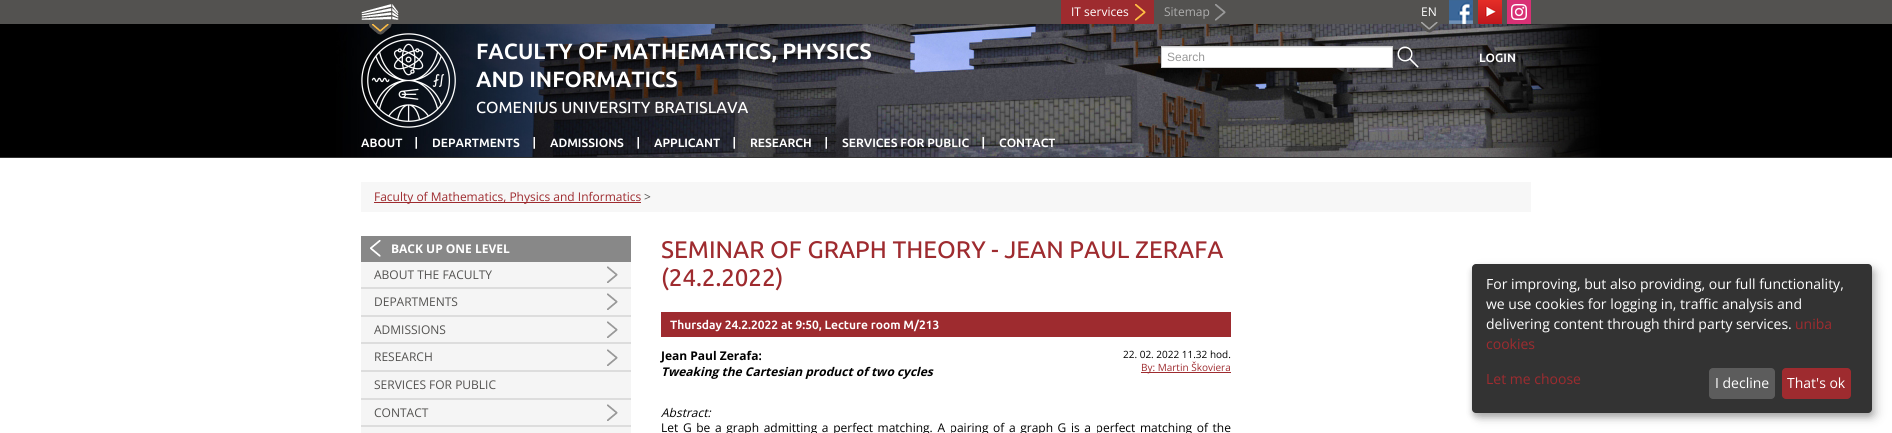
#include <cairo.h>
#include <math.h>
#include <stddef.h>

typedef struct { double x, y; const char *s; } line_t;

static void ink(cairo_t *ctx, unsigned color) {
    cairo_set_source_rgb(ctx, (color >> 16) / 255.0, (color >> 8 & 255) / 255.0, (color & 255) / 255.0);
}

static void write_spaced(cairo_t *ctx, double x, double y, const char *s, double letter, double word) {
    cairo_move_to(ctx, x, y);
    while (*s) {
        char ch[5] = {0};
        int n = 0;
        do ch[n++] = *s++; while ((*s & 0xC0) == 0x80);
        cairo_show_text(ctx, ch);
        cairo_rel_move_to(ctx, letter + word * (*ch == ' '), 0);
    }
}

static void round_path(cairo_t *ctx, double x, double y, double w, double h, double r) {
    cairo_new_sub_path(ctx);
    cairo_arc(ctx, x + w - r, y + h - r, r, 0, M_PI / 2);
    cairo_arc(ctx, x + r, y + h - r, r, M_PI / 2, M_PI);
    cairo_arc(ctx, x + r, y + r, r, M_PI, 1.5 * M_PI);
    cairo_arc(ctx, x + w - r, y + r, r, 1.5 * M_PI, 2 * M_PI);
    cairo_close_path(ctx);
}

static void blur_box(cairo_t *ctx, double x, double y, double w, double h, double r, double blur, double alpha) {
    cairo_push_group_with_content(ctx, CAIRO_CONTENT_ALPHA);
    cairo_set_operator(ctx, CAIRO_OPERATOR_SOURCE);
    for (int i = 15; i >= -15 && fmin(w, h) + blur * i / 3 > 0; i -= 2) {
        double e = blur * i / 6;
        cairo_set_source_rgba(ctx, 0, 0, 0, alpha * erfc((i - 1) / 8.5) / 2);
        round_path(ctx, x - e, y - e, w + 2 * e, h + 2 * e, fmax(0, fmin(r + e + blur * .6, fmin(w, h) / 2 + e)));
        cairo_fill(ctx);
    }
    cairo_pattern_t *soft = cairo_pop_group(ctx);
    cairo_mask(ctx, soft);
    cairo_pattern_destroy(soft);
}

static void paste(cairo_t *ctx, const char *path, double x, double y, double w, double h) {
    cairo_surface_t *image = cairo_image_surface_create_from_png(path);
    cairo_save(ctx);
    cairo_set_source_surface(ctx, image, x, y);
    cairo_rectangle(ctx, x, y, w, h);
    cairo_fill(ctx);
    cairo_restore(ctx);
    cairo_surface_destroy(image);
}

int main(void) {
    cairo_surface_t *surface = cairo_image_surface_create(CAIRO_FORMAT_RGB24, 1892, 433);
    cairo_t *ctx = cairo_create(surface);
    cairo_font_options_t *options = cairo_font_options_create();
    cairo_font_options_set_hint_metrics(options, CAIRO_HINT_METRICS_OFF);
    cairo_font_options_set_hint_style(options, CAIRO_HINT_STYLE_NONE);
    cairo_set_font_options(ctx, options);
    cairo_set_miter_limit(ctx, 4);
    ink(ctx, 0xFFFFFF);
    cairo_paint(ctx);
    ink(ctx, 0x535250);
    cairo_rectangle(ctx, 0, 0, 1892, 24);
    cairo_fill(ctx);
    paste(ctx, "media/8.png", 0, 24, 1892, 133);
    paste(ctx, "media/9.png", 361, 33, 95, 95);
    paste(ctx, "media/1.png", 361, 4, 38, 31);
    ink(ctx, 0x9E2B2F);
    cairo_rectangle(ctx, 1061, 0, 93, 24);
    cairo_fill(ctx);
    paste(ctx, "media/2.png", 1135, 4, 11, 17);
    cairo_select_font_face(ctx, "Open Sans", CAIRO_FONT_SLANT_NORMAL, CAIRO_FONT_WEIGHT_NORMAL);
    cairo_set_font_size(ctx, 12);
    ink(ctx, 0xFFFFFF);
    cairo_move_to(ctx, 1071, 16);
    cairo_show_text(ctx, "IT services");
    paste(ctx, "media/3.png", 1215, 4, 11, 17);
    ink(ctx, 0xADADAD);
    cairo_move_to(ctx, 1164, 16);
    cairo_show_text(ctx, "Sitemap");
    paste(ctx, "media/4.png", 1418, 22, 22, 11);
    ink(ctx, 0xFFFFFF);
    cairo_move_to(ctx, 1421, 16);
    cairo_show_text(ctx, "EN");
    paste(ctx, "media/5.png", 1449, 0, 24, 24);
    paste(ctx, "media/6.png", 1478, 0, 24, 24);
    paste(ctx, "media/7.png", 1507, 0, 24, 24);
    ink(ctx, 0x323232);
    cairo_rectangle(ctx, 0, 157, 1892, 1);
    cairo_fill(ctx);
    cairo_select_font_face(ctx, "Ubuntu", CAIRO_FONT_SLANT_NORMAL, CAIRO_FONT_WEIGHT_BOLD);
    cairo_set_font_size(ctx, 22);
    ink(ctx, 0xFFFFFF);
    cairo_move_to(ctx, 476, 59);
    cairo_show_text(ctx, "FACULTY OF MATHEMATICS, PHYSICS");
    cairo_move_to(ctx, 476, 87);
    cairo_show_text(ctx, "AND INFORMATICS");
    cairo_select_font_face(ctx, "Ubuntu Medium", CAIRO_FONT_SLANT_NORMAL, CAIRO_FONT_WEIGHT_NORMAL);
    cairo_set_font_size(ctx, 16);
    cairo_move_to(ctx, 476, 113);
    cairo_show_text(ctx, "COMENIUS UNIVERSITY BRATISLAVA");
    cairo_rectangle(ctx, 1162, 48, 230, 19);
    cairo_fill(ctx);
    ink(ctx, 0xECECEC);
    cairo_rectangle(ctx, 1162, 47, 230, 1);
    cairo_fill(ctx);
    cairo_rectangle(ctx, 1161.5, 46.5, 231, 21);
    ink(ctx, 0xCCCCCC);
    cairo_set_line_width(ctx, 1);
    cairo_stroke(ctx);
    cairo_select_font_face(ctx, "Liberation Sans", CAIRO_FONT_SLANT_NORMAL, CAIRO_FONT_WEIGHT_NORMAL);
    cairo_set_font_size(ctx, 12);
    ink(ctx, 0x999999);
    cairo_move_to(ctx, 1167, 61);
    cairo_show_text(ctx, "Search");
    paste(ctx, "media/10.png", 1397, 46, 22, 22);
    cairo_select_font_face(ctx, "Ubuntu", CAIRO_FONT_SLANT_NORMAL, CAIRO_FONT_WEIGHT_BOLD);
    ink(ctx, 0xFFFFFF);
    cairo_move_to(ctx, 1479, 62);
    cairo_show_text(ctx, "LOGIN");
    cairo_move_to(ctx, 361, 147);
    cairo_show_text(ctx, "ABOUT");
    paste(ctx, "media/11.png", 415, 137, 2, 12);
    cairo_move_to(ctx, 432, 147);
    cairo_show_text(ctx, "DEPARTMENTS");
    paste(ctx, "media/12.png", 533, 137, 2, 12);
    cairo_move_to(ctx, 550, 147);
    cairo_show_text(ctx, "ADMISSIONS");
    paste(ctx, "media/13.png", 637, 137, 2, 12);
    cairo_move_to(ctx, 654, 147);
    cairo_show_text(ctx, "APPLICANT");
    paste(ctx, "media/14.png", 733, 137, 2, 12);
    cairo_move_to(ctx, 750, 147);
    cairo_show_text(ctx, "RESEARCH");
    paste(ctx, "media/15.png", 825, 137, 2, 12);
    cairo_move_to(ctx, 842, 147);
    cairo_show_text(ctx, "SERVICES FOR PUBLIC");
    paste(ctx, "media/16.png", 982, 137, 2, 12);
    cairo_move_to(ctx, 999, 147);
    cairo_show_text(ctx, "CONTACT");
    ink(ctx, 0xF7F7F7);
    cairo_rectangle(ctx, 361, 182, 1170, 30);
    cairo_fill(ctx);
    ink(ctx, 0x9E2B2F);
    cairo_rectangle(ctx, 374, 202, 267, 1);
    cairo_fill(ctx);
    cairo_select_font_face(ctx, "Open Sans", CAIRO_FONT_SLANT_NORMAL, CAIRO_FONT_WEIGHT_NORMAL);
    cairo_move_to(ctx, 374, 201);
    cairo_show_text(ctx, "Faculty of Mathematics, Physics and Informatics");
    ink(ctx, 0x535250);
    cairo_move_to(ctx, 644, 201);
    cairo_show_text(ctx, ">");
    ink(ctx, 0xF5F5F5);
    cairo_rectangle(ctx, 361, 262, 270, 171);
    cairo_fill(ctx);
    ink(ctx, 0x888888);
    cairo_rectangle(ctx, 361, 236, 270, 26);
    cairo_fill(ctx);
    paste(ctx, "media/17.png", 370, 240, 11, 17);
    cairo_select_font_face(ctx, "Open Sans", CAIRO_FONT_SLANT_NORMAL, CAIRO_FONT_WEIGHT_BOLD);
    ink(ctx, 0xFFFFFF);
    cairo_move_to(ctx, 391, 253);
    cairo_show_text(ctx, "BACK UP ONE LEVEL");
    ink(ctx, 0xDDDDDD);
    cairo_rectangle(ctx, 361, 287, 270, 2);
    cairo_fill(ctx);
    paste(ctx, "media/18.png", 607, 266, 11, 17);
    cairo_select_font_face(ctx, "Open Sans", CAIRO_FONT_SLANT_NORMAL, CAIRO_FONT_WEIGHT_NORMAL);
    ink(ctx, 0x535250);
    cairo_move_to(ctx, 374, 279);
    cairo_show_text(ctx, "ABOUT THE FACULTY");
    ink(ctx, 0xDDDDDD);
    cairo_rectangle(ctx, 361, 315, 270, 2);
    cairo_fill(ctx);
    paste(ctx, "media/18.png", 607, 293, 11, 17);
    ink(ctx, 0x535250);
    cairo_move_to(ctx, 374, 306);
    cairo_show_text(ctx, "DEPARTMENTS");
    ink(ctx, 0xDDDDDD);
    cairo_rectangle(ctx, 361, 342, 270, 2);
    cairo_fill(ctx);
    paste(ctx, "media/18.png", 607, 321, 11, 17);
    ink(ctx, 0x535250);
    cairo_move_to(ctx, 374, 334);
    cairo_show_text(ctx, "ADMISSIONS");
    ink(ctx, 0xDDDDDD);
    cairo_rectangle(ctx, 361, 370, 270, 2);
    cairo_fill(ctx);
    paste(ctx, "media/18.png", 607, 349, 11, 17);
    ink(ctx, 0x535250);
    cairo_move_to(ctx, 374, 361);
    cairo_show_text(ctx, "RESEARCH");
    ink(ctx, 0xDDDDDD);
    cairo_rectangle(ctx, 361, 398, 270, 2);
    cairo_fill(ctx);
    ink(ctx, 0x535250);
    cairo_move_to(ctx, 374, 389);
    cairo_show_text(ctx, "SERVICES FOR PUBLIC");
    ink(ctx, 0xDDDDDD);
    cairo_rectangle(ctx, 361, 425, 270, 2);
    cairo_fill(ctx);
    paste(ctx, "media/18.png", 607, 404, 11, 17);
    ink(ctx, 0x535250);
    cairo_move_to(ctx, 374, 417);
    cairo_show_text(ctx, "CONTACT");
    cairo_select_font_face(ctx, "Ubuntu Medium", CAIRO_FONT_SLANT_NORMAL, CAIRO_FONT_WEIGHT_NORMAL);
    cairo_set_font_size(ctx, 24);
    ink(ctx, 0x9E2B2F);
    cairo_move_to(ctx, 661, 258);
    cairo_show_text(ctx, "SEMINAR OF GRAPH THEORY - JEAN PAUL ZERAFA");
    cairo_move_to(ctx, 661, 286);
    cairo_show_text(ctx, "(24.2.2022)");
    cairo_rectangle(ctx, 661, 312, 570, 25);
    cairo_fill(ctx);
    cairo_select_font_face(ctx, "Ubuntu", CAIRO_FONT_SLANT_NORMAL, CAIRO_FONT_WEIGHT_BOLD);
    cairo_set_font_size(ctx, 12);
    ink(ctx, 0xFFFFFF);
    cairo_move_to(ctx, 670, 329);
    cairo_show_text(ctx, "Thursday 24.2.2022 at 9:50, Lecture room M/213");
    cairo_select_font_face(ctx, "Open Sans", CAIRO_FONT_SLANT_NORMAL, CAIRO_FONT_WEIGHT_BOLD);
    ink(ctx, 0x000000);
    cairo_move_to(ctx, 661, 360);
    cairo_show_text(ctx, "Jean Paul Zerafa:");
    cairo_select_font_face(ctx, "Open Sans", CAIRO_FONT_SLANT_ITALIC, CAIRO_FONT_WEIGHT_BOLD);
    cairo_move_to(ctx, 661, 376);
    cairo_show_text(ctx, "Tweaking the Cartesian product of two cycles");
    cairo_select_font_face(ctx, "Open Sans", CAIRO_FONT_SLANT_NORMAL, CAIRO_FONT_WEIGHT_NORMAL);
    cairo_set_font_size(ctx, 10);
    cairo_move_to(ctx, 1123, 358);
    cairo_show_text(ctx, "22. 02. 2022 11.32 hod.");
    ink(ctx, 0x9E2B2F);
    cairo_rectangle(ctx, 1141, 372, 90, 1);
    cairo_fill(ctx);
    cairo_move_to(ctx, 1141, 371);
    cairo_show_text(ctx, "By: Martin Škoviera");
    cairo_select_font_face(ctx, "Open Sans", CAIRO_FONT_SLANT_ITALIC, CAIRO_FONT_WEIGHT_NORMAL);
    cairo_set_font_size(ctx, 12);
    ink(ctx, 0x000000);
    cairo_move_to(ctx, 661, 417);
    cairo_show_text(ctx, "Abstract:");
    cairo_select_font_face(ctx, "Open Sans", CAIRO_FONT_SLANT_NORMAL, CAIRO_FONT_WEIGHT_NORMAL);
    write_spaced(ctx, 661, 432, "Let G be a graph admitting a perfect matching. A pairing of a graph G is a perfect matching of the", 0, 1.5);
    ink(ctx, 0x000000);
    blur_box(ctx, 1477, 269, 400, 149, 4, 5, 0.19);
    blur_box(ctx, 1472, 268, 400, 149, 4, 3, 0.2);
    ink(ctx, 0x333333);
    round_path(ctx, 1472, 264, 400, 149, 4);
    cairo_fill(ctx);
    cairo_set_font_size(ctx, 14);
    ink(ctx, 0xFFFFFF);
    {
        static const line_t items[] = {
            {1486, 289, "For improving, but also providing, our full functionality,"},
            {1486, 309, "we use cookies for logging in, traffic analysis and"},
            {1486, 329, "delivering content through third party services."},
        };
        for (size_t i = 0; i < sizeof items / sizeof *items; i++) {
            cairo_move_to(ctx, items[i].x, items[i].y);
            cairo_show_text(ctx, items[i].s);
        }
    }
    ink(ctx, 0x9E2B2F);
    {
        static const line_t items[] = {
            {1795, 329, "uniba"},
            {1486, 349, "cookies"},
            {1486, 384, "Let me choose"},
        };
        for (size_t i = 0; i < sizeof items / sizeof *items; i++) {
            cairo_move_to(ctx, items[i].x, items[i].y);
            cairo_show_text(ctx, items[i].s);
        }
    }
    ink(ctx, 0x5C5C5C);
    round_path(ctx, 1709, 368, 66, 31, 4);
    cairo_fill(ctx);
    ink(ctx, 0xFFFFFF);
    cairo_move_to(ctx, 1715, 388);
    cairo_show_text(ctx, "I decline");
    ink(ctx, 0x9E2B2F);
    round_path(ctx, 1782, 368, 69, 31, 4);
    cairo_fill(ctx);
    ink(ctx, 0xFFFFFF);
    cairo_move_to(ctx, 1787, 388);
    cairo_show_text(ctx, "That's ok");
    cairo_surface_write_to_png(surface, "image.png");
    cairo_font_options_destroy(options);
    cairo_destroy(ctx);
    cairo_surface_destroy(surface);
    return 0;
}
